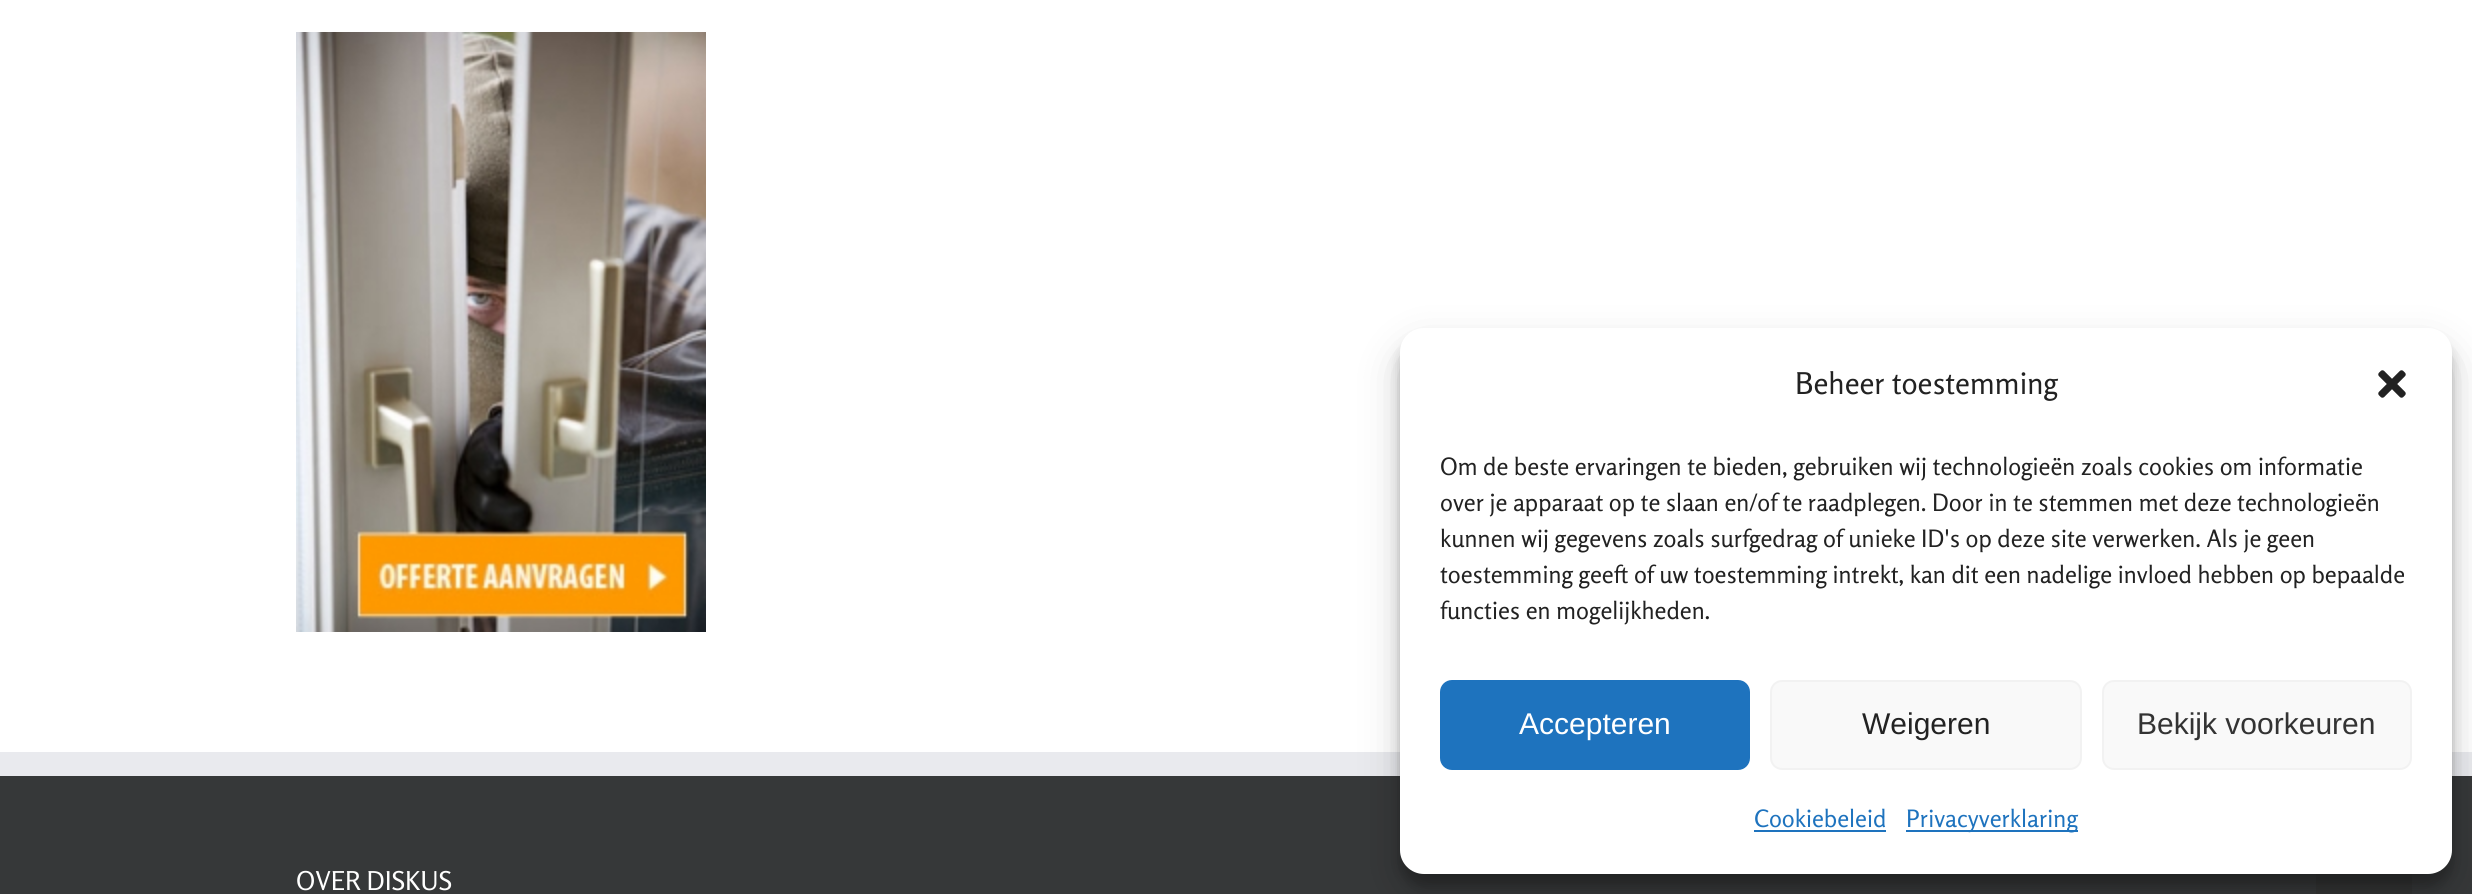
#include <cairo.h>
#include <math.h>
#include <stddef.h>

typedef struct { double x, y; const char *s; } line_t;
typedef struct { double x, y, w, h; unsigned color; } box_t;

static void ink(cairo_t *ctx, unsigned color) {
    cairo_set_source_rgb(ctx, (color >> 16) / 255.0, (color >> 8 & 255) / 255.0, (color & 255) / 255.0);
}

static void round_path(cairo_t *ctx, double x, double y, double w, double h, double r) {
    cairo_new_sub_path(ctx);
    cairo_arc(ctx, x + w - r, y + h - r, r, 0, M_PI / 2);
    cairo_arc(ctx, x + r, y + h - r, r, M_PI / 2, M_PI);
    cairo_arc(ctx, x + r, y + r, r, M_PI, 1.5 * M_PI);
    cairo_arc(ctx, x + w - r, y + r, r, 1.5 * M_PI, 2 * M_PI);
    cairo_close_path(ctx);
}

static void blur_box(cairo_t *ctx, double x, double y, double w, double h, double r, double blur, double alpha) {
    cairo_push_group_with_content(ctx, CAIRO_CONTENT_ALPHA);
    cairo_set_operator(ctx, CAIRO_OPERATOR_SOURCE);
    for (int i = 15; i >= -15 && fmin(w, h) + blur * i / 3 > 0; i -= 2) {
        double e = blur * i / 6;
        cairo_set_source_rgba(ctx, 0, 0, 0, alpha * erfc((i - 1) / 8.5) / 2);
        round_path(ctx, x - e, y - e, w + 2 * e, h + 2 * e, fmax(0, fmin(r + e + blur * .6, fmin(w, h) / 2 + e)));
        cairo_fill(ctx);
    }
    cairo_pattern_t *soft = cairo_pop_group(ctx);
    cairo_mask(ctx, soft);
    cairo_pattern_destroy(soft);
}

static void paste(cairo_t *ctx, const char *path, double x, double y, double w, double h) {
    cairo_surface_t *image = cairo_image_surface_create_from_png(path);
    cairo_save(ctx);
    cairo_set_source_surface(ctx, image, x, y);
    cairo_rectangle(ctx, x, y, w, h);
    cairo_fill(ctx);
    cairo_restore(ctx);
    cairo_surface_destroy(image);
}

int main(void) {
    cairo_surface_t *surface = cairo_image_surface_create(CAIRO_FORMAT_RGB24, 2472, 894);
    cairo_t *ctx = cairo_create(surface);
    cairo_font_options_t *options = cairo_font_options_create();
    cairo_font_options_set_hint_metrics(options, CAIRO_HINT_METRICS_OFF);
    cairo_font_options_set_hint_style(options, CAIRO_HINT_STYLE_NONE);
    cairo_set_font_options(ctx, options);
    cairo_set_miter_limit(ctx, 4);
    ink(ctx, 0xFFFFFF);
    cairo_paint(ctx);
    {
        static const box_t items[] = {
            {0, 776, 2472, 118, 0x363839},
            {0, 752, 2472, 24, 0xE9EAEE},
            {2316, 874, 96, 20, 0x333434},
        };
        for (size_t i = 0; i < sizeof items / sizeof *items; i++) {
            ink(ctx, items[i].color);
            cairo_rectangle(ctx, items[i].x, items[i].y, items[i].w, items[i].h);
            cairo_fill(ctx);
        }
    }
    ink(ctx, 0x000000);
    blur_box(ctx, 1400, 340, 1052, 546, 24, 6, 0.23);
    blur_box(ctx, 1400, 348, 1052, 546, 24, 20, 0.19);
    ink(ctx, 0xFFFFFF);
    round_path(ctx, 1400, 328, 1052, 546, 24);
    cairo_fill(ctx);
    cairo_select_font_face(ctx, "Rosario", CAIRO_FONT_SLANT_NORMAL, CAIRO_FONT_WEIGHT_NORMAL);
    cairo_set_font_size(ctx, 30);
    ink(ctx, 0x222222);
    cairo_move_to(ctx, 1795, 394);
    cairo_show_text(ctx, "Beheer toestemming");
    paste(ctx, "media/1.png", 2378, 370, 28, 28);
    cairo_set_font_size(ctx, 24);
    {
        static const line_t items[] = {
            {1440, 475, "Om de beste ervaringen te bieden, gebruiken wij technologieën zoals cookies om informatie"},
            {1440, 511, "over je apparaat op te slaan en/of te raadplegen. Door in te stemmen met deze technologieën"},
            {1440, 547, "kunnen wij gegevens zoals surfgedrag of unieke ID's op deze site verwerken. Als je geen"},
            {1440, 583, "toestemming geeft of uw toestemming intrekt, kan dit een nadelige invloed hebben op bepaalde"},
            {1440, 619, "functies en mogelijkheden."},
        };
        for (size_t i = 0; i < sizeof items / sizeof *items; i++) {
            cairo_move_to(ctx, items[i].x, items[i].y);
            cairo_show_text(ctx, items[i].s);
        }
    }
    ink(ctx, 0x1E73BE);
    round_path(ctx, 1441, 681, 308, 88, 11);
    cairo_fill_preserve(ctx);
    cairo_stroke(ctx);
    cairo_select_font_face(ctx, "Liberation Sans", CAIRO_FONT_SLANT_NORMAL, CAIRO_FONT_WEIGHT_NORMAL);
    cairo_set_font_size(ctx, 30);
    ink(ctx, 0xFFFFFF);
    cairo_move_to(ctx, 1519, 734);
    cairo_show_text(ctx, "Accepteren");
    ink(ctx, 0xF9F9F9);
    round_path(ctx, 1771, 681, 310, 88, 11);
    cairo_fill_preserve(ctx);
    ink(ctx, 0xF2F2F2);
    cairo_stroke(ctx);
    ink(ctx, 0x222222);
    cairo_move_to(ctx, 1862, 734);
    cairo_show_text(ctx, "Weigeren");
    ink(ctx, 0xF9F9F9);
    round_path(ctx, 2103, 681, 308, 88, 11);
    cairo_fill_preserve(ctx);
    ink(ctx, 0xF2F2F2);
    cairo_stroke(ctx);
    ink(ctx, 0x333333);
    cairo_move_to(ctx, 2137, 734);
    cairo_show_text(ctx, "Bekijk voorkeuren");
    cairo_select_font_face(ctx, "Rosario", CAIRO_FONT_SLANT_NORMAL, CAIRO_FONT_WEIGHT_NORMAL);
    cairo_set_font_size(ctx, 24);
    ink(ctx, 0x1E73BE);
    cairo_move_to(ctx, 1754, 827);
    cairo_show_text(ctx, "Cookiebeleid");
    cairo_rectangle(ctx, 1754, 830, 132, 2);
    cairo_fill(ctx);
    cairo_rectangle(ctx, 1906, 830, 172, 2);
    cairo_fill(ctx);
    cairo_move_to(ctx, 1906, 827);
    cairo_show_text(ctx, "Privacyverklaring");
    paste(ctx, "media/2.png", 296, 32, 410, 600);
    cairo_set_font_size(ctx, 26);
    ink(ctx, 0xFFFFFF);
    cairo_move_to(ctx, 296, 890);
    cairo_show_text(ctx, "OVER DISKUS");
    cairo_surface_write_to_png(surface, "image.png");
    cairo_font_options_destroy(options);
    cairo_destroy(ctx);
    cairo_surface_destroy(surface);
    return 0;
}
